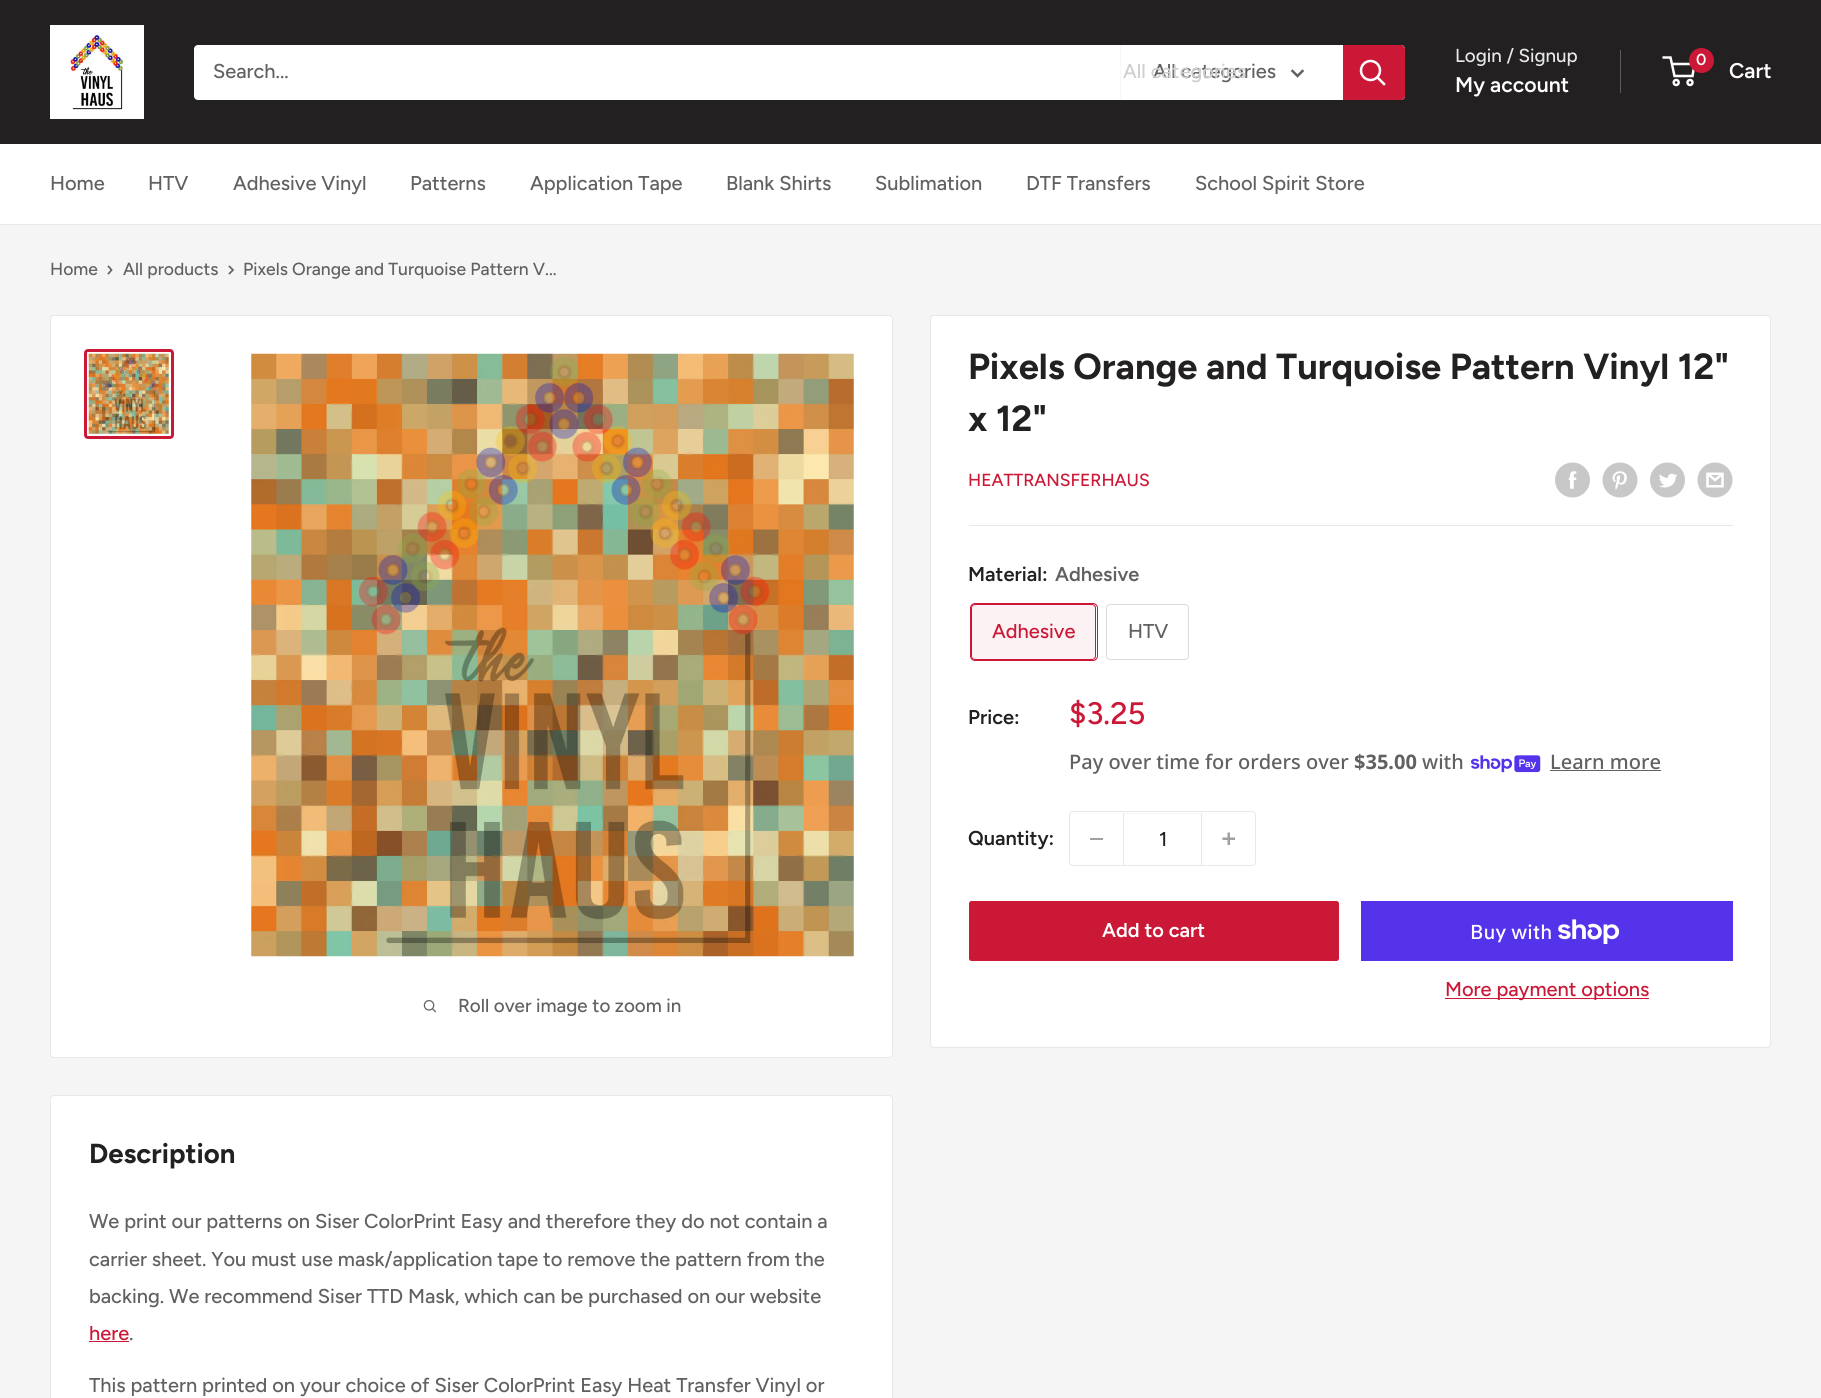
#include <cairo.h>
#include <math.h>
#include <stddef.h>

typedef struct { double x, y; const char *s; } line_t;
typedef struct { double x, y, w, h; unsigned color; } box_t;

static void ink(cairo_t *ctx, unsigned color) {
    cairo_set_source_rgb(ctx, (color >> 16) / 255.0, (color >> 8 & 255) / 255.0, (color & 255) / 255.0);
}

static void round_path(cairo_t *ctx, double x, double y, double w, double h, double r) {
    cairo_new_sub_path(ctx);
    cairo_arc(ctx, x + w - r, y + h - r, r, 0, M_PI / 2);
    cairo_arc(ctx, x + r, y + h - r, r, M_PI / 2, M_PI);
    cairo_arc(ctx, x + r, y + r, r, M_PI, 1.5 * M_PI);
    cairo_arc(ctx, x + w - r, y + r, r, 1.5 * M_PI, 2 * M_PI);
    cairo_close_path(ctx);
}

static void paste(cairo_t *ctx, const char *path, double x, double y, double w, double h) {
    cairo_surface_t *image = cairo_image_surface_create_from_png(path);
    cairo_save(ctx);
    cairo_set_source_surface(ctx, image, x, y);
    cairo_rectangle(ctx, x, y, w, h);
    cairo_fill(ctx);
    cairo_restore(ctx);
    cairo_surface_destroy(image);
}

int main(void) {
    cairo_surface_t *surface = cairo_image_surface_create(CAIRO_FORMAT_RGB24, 1821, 1398);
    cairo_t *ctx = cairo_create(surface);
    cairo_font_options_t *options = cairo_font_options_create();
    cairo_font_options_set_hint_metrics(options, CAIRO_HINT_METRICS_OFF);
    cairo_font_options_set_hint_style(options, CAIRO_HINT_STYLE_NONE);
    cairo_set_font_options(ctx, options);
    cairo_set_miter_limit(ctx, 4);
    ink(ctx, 0xF5F5F5);
    cairo_paint(ctx);
    ink(ctx, 0x222021);
    cairo_rectangle(ctx, 0, 0, 1821, 144);
    cairo_fill(ctx);
    paste(ctx, "media/1.png", 50, 25, 94, 94);
    ink(ctx, 0xFFFFFF);
    round_path(ctx, 194, 45, 1211, 55, 4);
    cairo_fill(ctx);
    cairo_select_font_face(ctx, "Figtree Medium", CAIRO_FONT_SLANT_NORMAL, CAIRO_FONT_WEIGHT_NORMAL);
    cairo_set_font_size(ctx, 20);
    ink(ctx, 0x616161);
    cairo_move_to(ctx, 213, 78);
    cairo_show_text(ctx, "Search...");
    ink(ctx, 0xF8F8F8);
    cairo_rectangle(ctx, 1120, 45, 1, 55);
    cairo_fill(ctx);
    ink(ctx, 0x616161);
    cairo_move_to(ctx, 1153, 78);
    cairo_show_text(ctx, "All categories");
    ink(ctx, 0xCFCFCF);
    cairo_move_to(ctx, 1123, 78);
    cairo_show_text(ctx, "All categories");
    cairo_new_path(ctx);
    cairo_move_to(ctx, 1302.5, 71);
    cairo_line_to(ctx, 1297.5, 76);
    cairo_line_to(ctx, 1292.5, 71);
    ink(ctx, 0x616161);
    cairo_set_line_width(ctx, 2.5);
    cairo_set_line_cap(ctx, CAIRO_LINE_CAP_SQUARE);
    cairo_stroke(ctx);
    ink(ctx, 0xCB1836);
    cairo_new_path(ctx);
    cairo_move_to(ctx, 1343, 45);
    cairo_line_to(ctx, 1401, 45);
    cairo_curve_to(ctx, 1403, 45, 1405, 47, 1405, 49);
    cairo_line_to(ctx, 1405, 96);
    cairo_curve_to(ctx, 1405, 98, 1403, 100, 1401, 100);
    cairo_line_to(ctx, 1343, 100);
    cairo_close_path(ctx);
    cairo_fill(ctx);
    cairo_new_path(ctx);
    cairo_move_to(ctx, 1384, 84);
    cairo_line_to(ctx, 1377.5, 77.5);
    ink(ctx, 0xFFFFFF);
    cairo_stroke(ctx);
    cairo_arc(ctx, 1370.5, 70.5, 9.5, 0, 2 * M_PI);
    cairo_set_line_cap(ctx, CAIRO_LINE_CAP_BUTT);
    cairo_stroke(ctx);
    cairo_set_font_size(ctx, 18.75);
    ink(ctx, 0xE8E8E8);
    cairo_move_to(ctx, 1455, 62);
    cairo_show_text(ctx, "Login / Signup");
    ink(ctx, 0x5D5C5D);
    cairo_rectangle(ctx, 1620, 50, 1, 43);
    cairo_fill(ctx);
    cairo_select_font_face(ctx, "Figtree SemiBold", CAIRO_FONT_SLANT_NORMAL, CAIRO_FONT_WEIGHT_NORMAL);
    cairo_set_font_size(ctx, 21.25);
    ink(ctx, 0xFFFFFF);
    cairo_move_to(ctx, 1455, 92);
    cairo_show_text(ctx, "My account");
    cairo_new_path(ctx);
    cairo_arc(ctx, 1676.2, 82.5, 2.5, 0, 2 * M_PI);
    cairo_stroke(ctx);
    cairo_arc(ctx, 1690, 82.5, 2.5, 0, 2 * M_PI);
    cairo_stroke(ctx);
    cairo_new_path(ctx);
    cairo_move_to(ctx, 1671.5, 64);
    cairo_line_to(ctx, 1694.5, 64);
    cairo_line_to(ctx, 1692.5, 76);
    cairo_line_to(ctx, 1674.5, 76);
    cairo_line_to(ctx, 1670.5, 57.5);
    cairo_line_to(ctx, 1662.5, 57.5);
    cairo_stroke(ctx);
    ink(ctx, 0xCB1836);
    cairo_arc(ctx, 1701.5, 60.5, 12.5, 0, 2 * M_PI);
    cairo_fill(ctx);
    cairo_set_font_size(ctx, 16);
    ink(ctx, 0xFFFFFF);
    cairo_move_to(ctx, 1696, 65);
    cairo_show_text(ctx, "0");
    cairo_set_font_size(ctx, 21.25);
    cairo_move_to(ctx, 1729, 78);
    cairo_show_text(ctx, "Cart");
    cairo_rectangle(ctx, 0, 144, 1821, 80);
    cairo_fill(ctx);
    ink(ctx, 0xE8E8E8);
    cairo_rectangle(ctx, 0, 224, 1821, 1);
    cairo_fill(ctx);
    cairo_select_font_face(ctx, "Figtree Medium", CAIRO_FONT_SLANT_NORMAL, CAIRO_FONT_WEIGHT_NORMAL);
    cairo_set_font_size(ctx, 20);
    ink(ctx, 0x616161);
    {
        static const line_t items[] = {
            {50, 190, "Home"},
            {148, 190, "HTV"},
            {233, 190, "Adhesive Vinyl"},
            {410, 190, "Patterns"},
            {530, 190, "Application Tape"},
            {726, 190, "Blank Shirts"},
            {875, 190, "Sublimation"},
            {1026, 190, "DTF Transfers"},
            {1195, 190, "School Spirit Store"},
        };
        for (size_t i = 0; i < sizeof items / sizeof *items; i++) {
            cairo_move_to(ctx, items[i].x, items[i].y);
            cairo_show_text(ctx, items[i].s);
        }
    }
    cairo_set_font_size(ctx, 17.5);
    cairo_move_to(ctx, 50, 275);
    cairo_show_text(ctx, "Home");
    cairo_new_path(ctx);
    cairo_move_to(ctx, 108.5, 266.5);
    cairo_line_to(ctx, 111.5, 270);
    cairo_line_to(ctx, 108.5, 273.5);
    cairo_set_line_width(ctx, 1.7);
    cairo_set_line_cap(ctx, CAIRO_LINE_CAP_SQUARE);
    cairo_stroke(ctx);
    cairo_move_to(ctx, 123, 275);
    cairo_show_text(ctx, "All products");
    cairo_new_path(ctx);
    cairo_move_to(ctx, 229.5, 266.5);
    cairo_line_to(ctx, 233, 270);
    cairo_line_to(ctx, 229.5, 273.5);
    cairo_stroke(ctx);
    cairo_move_to(ctx, 243, 275);
    cairo_show_text(ctx, "Pixels Orange and Turquoise Pattern V...");
    ink(ctx, 0xFFFFFF);
    round_path(ctx, 930.5, 315.5, 840, 732, 3.5);
    cairo_fill_preserve(ctx);
    ink(ctx, 0xE8E8E8);
    cairo_set_line_width(ctx, 1);
    cairo_set_line_cap(ctx, CAIRO_LINE_CAP_BUTT);
    cairo_stroke(ctx);
    cairo_select_font_face(ctx, "Figtree", CAIRO_FONT_SLANT_NORMAL, CAIRO_FONT_WEIGHT_BOLD);
    cairo_set_font_size(ctx, 36.25);
    ink(ctx, 0x222021);
    cairo_move_to(ctx, 968, 379);
    cairo_show_text(ctx, "Pixels Orange and Turquoise Pattern Vinyl 12\"");
    cairo_move_to(ctx, 968, 431);
    cairo_show_text(ctx, "x 12\"");
    cairo_select_font_face(ctx, "Figtree Medium", CAIRO_FONT_SLANT_NORMAL, CAIRO_FONT_WEIGHT_NORMAL);
    cairo_set_font_size(ctx, 17.5);
    ink(ctx, 0xCB1836);
    cairo_move_to(ctx, 968, 486);
    cairo_show_text(ctx, "HEATTRANSFERHAUS");
    paste(ctx, "media/2.png", 1555, 462, 35, 36);
    paste(ctx, "media/3.png", 1602, 462, 36, 36);
    paste(ctx, "media/4.png", 1650, 462, 35, 36);
    paste(ctx, "media/5.png", 1697, 462, 36, 36);
    ink(ctx, 0xE8E8E8);
    cairo_rectangle(ctx, 969, 525, 764, 1);
    cairo_fill(ctx);
    cairo_select_font_face(ctx, "Figtree SemiBold", CAIRO_FONT_SLANT_NORMAL, CAIRO_FONT_WEIGHT_NORMAL);
    cairo_set_font_size(ctx, 20);
    ink(ctx, 0x222021);
    cairo_move_to(ctx, 968, 581);
    cairo_show_text(ctx, "Material:");
    ink(ctx, 0x616161);
    cairo_move_to(ctx, 1055, 581);
    cairo_show_text(ctx, "Adhesive");
    round_path(ctx, 970.5, 603.5, 127, 57, 4.5);
    ink(ctx, 0xCB1836);
    cairo_stroke(ctx);
    cairo_set_source_rgba(ctx, 0.796, 0.094, 0.212, 0.06);
    cairo_rectangle(ctx, 971, 604, 125, 56);
    cairo_fill(ctx);
    round_path(ctx, 971.5, 604.5, 124, 55, 3.5);
    ink(ctx, 0xCB1836);
    cairo_stroke(ctx);
    cairo_select_font_face(ctx, "Figtree Medium", CAIRO_FONT_SLANT_NORMAL, CAIRO_FONT_WEIGHT_NORMAL);
    cairo_move_to(ctx, 992, 638);
    cairo_show_text(ctx, "Adhesive");
    round_path(ctx, 1106.5, 604.5, 82, 55, 3.5);
    ink(ctx, 0xDBDBDB);
    cairo_stroke(ctx);
    ink(ctx, 0x616161);
    cairo_move_to(ctx, 1128, 638);
    cairo_show_text(ctx, "HTV");
    cairo_select_font_face(ctx, "Figtree SemiBold", CAIRO_FONT_SLANT_NORMAL, CAIRO_FONT_WEIGHT_NORMAL);
    ink(ctx, 0x222021);
    cairo_move_to(ctx, 968, 724);
    cairo_show_text(ctx, "Price:");
    cairo_select_font_face(ctx, "Figtree Medium", CAIRO_FONT_SLANT_NORMAL, CAIRO_FONT_WEIGHT_NORMAL);
    cairo_set_font_size(ctx, 31);
    ink(ctx, 0xCB1836);
    cairo_move_to(ctx, 1069, 724);
    cairo_show_text(ctx, "$3.25");
    cairo_select_font_face(ctx, "Noto Sans Medium", CAIRO_FONT_SLANT_NORMAL, CAIRO_FONT_WEIGHT_NORMAL);
    cairo_set_font_size(ctx, 20);
    ink(ctx, 0x616161);
    cairo_move_to(ctx, 1069, 769);
    cairo_show_text(ctx, "Pay over time for orders over");
    cairo_select_font_face(ctx, "Noto Sans", CAIRO_FONT_SLANT_NORMAL, CAIRO_FONT_WEIGHT_BOLD);
    cairo_move_to(ctx, 1354, 769);
    cairo_show_text(ctx, "$35.00");
    cairo_select_font_face(ctx, "Noto Sans Medium", CAIRO_FONT_SLANT_NORMAL, CAIRO_FONT_WEIGHT_NORMAL);
    cairo_move_to(ctx, 1422, 769);
    cairo_show_text(ctx, "with");
    paste(ctx, "media/6.png", 1471, 755, 70, 18);
    cairo_move_to(ctx, 1550, 769);
    cairo_show_text(ctx, "Learn more");
    cairo_rectangle(ctx, 1550, 770, 111, 1);
    cairo_fill(ctx);
    cairo_select_font_face(ctx, "Figtree SemiBold", CAIRO_FONT_SLANT_NORMAL, CAIRO_FONT_WEIGHT_NORMAL);
    ink(ctx, 0x222021);
    cairo_move_to(ctx, 968, 845);
    cairo_show_text(ctx, "Quantity:");
    round_path(ctx, 1069.5, 811.5, 186, 54, 3.5);
    ink(ctx, 0xE8E8E8);
    cairo_stroke(ctx);
    {
        static const box_t items[] = {
            {1090, 838, 13, 2, 0xA0A0A0},
            {1124, 813, 77, 1, 0xF6F6F6},
            {1201, 813, 1, 52, 0xE8E8E8},
            {1123, 813, 1, 52, 0xE8E8E8},
        };
        for (size_t i = 0; i < sizeof items / sizeof *items; i++) {
            ink(ctx, items[i].color);
            cairo_rectangle(ctx, items[i].x, items[i].y, items[i].w, items[i].h);
            cairo_fill(ctx);
        }
    }
    cairo_select_font_face(ctx, "Figtree Medium", CAIRO_FONT_SLANT_NORMAL, CAIRO_FONT_WEIGHT_NORMAL);
    ink(ctx, 0x222021);
    cairo_move_to(ctx, 1159, 846);
    cairo_show_text(ctx, "1");
    paste(ctx, "media/7.png", 1222, 832, 13, 13);
    ink(ctx, 0xCB1836);
    round_path(ctx, 969, 901, 370, 60, 2.5);
    cairo_fill(ctx);
    cairo_select_font_face(ctx, "Figtree SemiBold", CAIRO_FONT_SLANT_NORMAL, CAIRO_FONT_WEIGHT_NORMAL);
    ink(ctx, 0xFFFFFF);
    cairo_move_to(ctx, 1102, 937);
    cairo_show_text(ctx, "Add to cart");
    ink(ctx, 0x5433EB);
    cairo_rectangle(ctx, 1361, 901, 372, 60);
    cairo_fill(ctx);
    cairo_select_font_face(ctx, "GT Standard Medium", CAIRO_FONT_SLANT_NORMAL, CAIRO_FONT_WEIGHT_NORMAL);
    ink(ctx, 0xFFFFFF);
    cairo_move_to(ctx, 1470, 939);
    cairo_show_text(ctx, "Buy with");
    paste(ctx, "media/8.png", 1558, 919, 62, 25);
    ink(ctx, 0xCB1836);
    cairo_rectangle(ctx, 1445, 998, 204, 1);
    cairo_fill(ctx);
    cairo_select_font_face(ctx, "Figtree Medium", CAIRO_FONT_SLANT_NORMAL, CAIRO_FONT_WEIGHT_NORMAL);
    cairo_move_to(ctx, 1445, 996);
    cairo_show_text(ctx, "More payment options");
    ink(ctx, 0xFFFFFF);
    round_path(ctx, 50.5, 315.5, 842, 742, 3.5);
    cairo_fill_preserve(ctx);
    ink(ctx, 0xE8E8E8);
    cairo_stroke(ctx);
    round_path(ctx, 85.5, 350.5, 87, 87, 2.5);
    ink(ctx, 0xCB1836);
    cairo_set_line_width(ctx, 3);
    cairo_stroke(ctx);
    paste(ctx, "media/9.png", 88, 353, 81, 81);
    paste(ctx, "media/10.png", 251, 353, 603, 604);
    paste(ctx, "media/11.png", 423, 1000, 14, 13);
    cairo_set_font_size(ctx, 18.75);
    ink(ctx, 0x616161);
    cairo_move_to(ctx, 458, 1012);
    cairo_show_text(ctx, "Roll over image to zoom in");
    ink(ctx, 0xFFFFFF);
    round_path(ctx, 50.5, 1095.5, 842, 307, 3.5);
    cairo_fill_preserve(ctx);
    ink(ctx, 0xE8E8E8);
    cairo_set_line_width(ctx, 1);
    cairo_stroke(ctx);
    cairo_select_font_face(ctx, "Figtree", CAIRO_FONT_SLANT_NORMAL, CAIRO_FONT_WEIGHT_BOLD);
    cairo_set_font_size(ctx, 27.5);
    ink(ctx, 0x222021);
    cairo_move_to(ctx, 89, 1163);
    cairo_show_text(ctx, "Description");
    cairo_select_font_face(ctx, "Figtree Medium", CAIRO_FONT_SLANT_NORMAL, CAIRO_FONT_WEIGHT_NORMAL);
    cairo_set_font_size(ctx, 20);
    ink(ctx, 0x616161);
    {
        static const line_t items[] = {
            {89, 1228, "We print our patterns on Siser ColorPrint Easy and therefore they do not contain a"},
            {89, 1266, "carrier sheet. You must use mask/application tape to remove the pattern from the"},
            {89, 1303, "backing. We recommend Siser TTD Mask, which can be purchased on our website"},
        };
        for (size_t i = 0; i < sizeof items / sizeof *items; i++) {
            cairo_move_to(ctx, items[i].x, items[i].y);
            cairo_show_text(ctx, items[i].s);
        }
    }
    ink(ctx, 0xCB1836);
    cairo_move_to(ctx, 89, 1340);
    cairo_show_text(ctx, "here");
    cairo_rectangle(ctx, 89, 1341, 40, 1);
    cairo_fill(ctx);
    ink(ctx, 0x616161);
    cairo_move_to(ctx, 129, 1340);
    cairo_show_text(ctx, ".");
    cairo_move_to(ctx, 89, 1392);
    cairo_show_text(ctx, "This pattern printed on your choice of Siser ColorPrint Easy Heat Transfer Vinyl or");
    cairo_surface_write_to_png(surface, "image.png");
    cairo_font_options_destroy(options);
    cairo_destroy(ctx);
    cairo_surface_destroy(surface);
    return 0;
}
